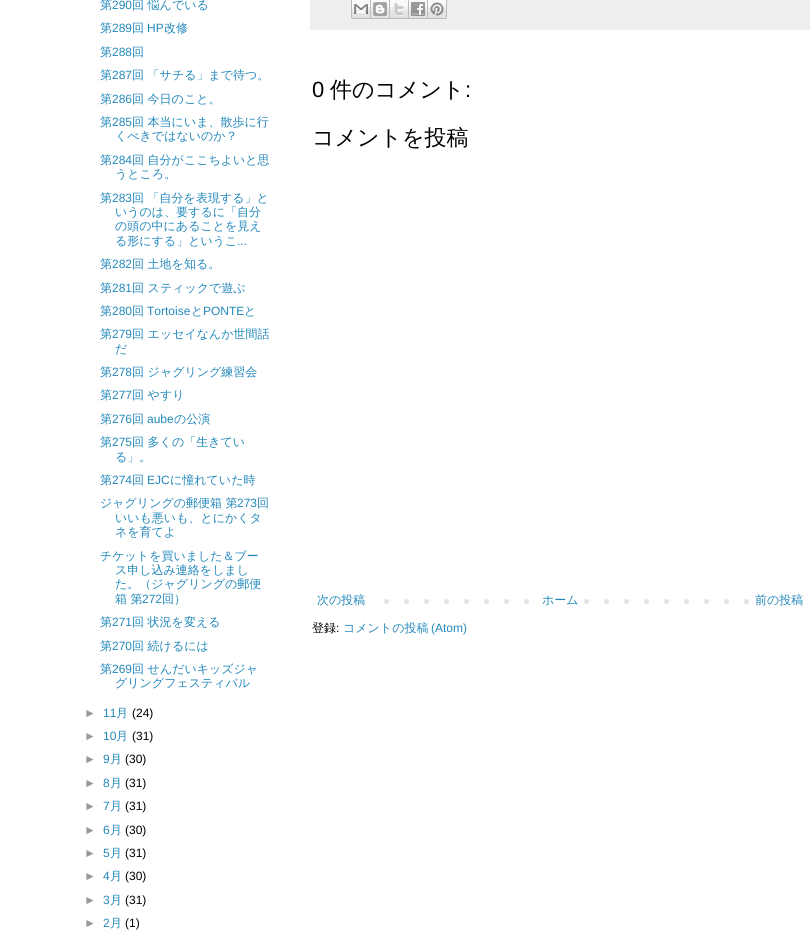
#include <cairo.h>
#include <math.h>
#include <stddef.h>

typedef struct { double x, y; const char *s; } line_t;

static void ink(cairo_t *ctx, unsigned color) {
    cairo_set_source_rgb(ctx, (color >> 16) / 255.0, (color >> 8 & 255) / 255.0, (color & 255) / 255.0);
}

static void paste(cairo_t *ctx, const char *path, double x, double y, double w, double h) {
    cairo_surface_t *image = cairo_image_surface_create_from_png(path);
    cairo_save(ctx);
    cairo_set_source_surface(ctx, image, x, y);
    cairo_rectangle(ctx, x, y, w, h);
    cairo_fill(ctx);
    cairo_restore(ctx);
    cairo_surface_destroy(image);
}

int main(void) {
    cairo_surface_t *surface = cairo_image_surface_create(CAIRO_FORMAT_RGB24, 811, 951);
    cairo_t *ctx = cairo_create(surface);
    cairo_font_options_t *options = cairo_font_options_create();
    cairo_font_options_set_hint_metrics(options, CAIRO_HINT_METRICS_OFF);
    cairo_font_options_set_hint_style(options, CAIRO_HINT_STYLE_NONE);
    cairo_set_font_options(ctx, options);
    cairo_set_miter_limit(ctx, 4);
    ink(ctx, 0xFFFFFF);
    cairo_paint(ctx);
    cairo_select_font_face(ctx, "WenQuanYi Zen Hei Medium", CAIRO_FONT_SLANT_NORMAL, CAIRO_FONT_WEIGHT_NORMAL);
    cairo_set_font_size(ctx, 12);
    ink(ctx, 0x2288BB);
    cairo_move_to(ctx, 100, 9);
    cairo_show_text(ctx, "第");
    cairo_select_font_face(ctx, "Liberation Sans", CAIRO_FONT_SLANT_NORMAL, CAIRO_FONT_WEIGHT_NORMAL);
    cairo_move_to(ctx, 112, 9);
    cairo_show_text(ctx, "290");
    cairo_select_font_face(ctx, "WenQuanYi Zen Hei Medium", CAIRO_FONT_SLANT_NORMAL, CAIRO_FONT_WEIGHT_NORMAL);
    cairo_move_to(ctx, 132, 9);
    cairo_show_text(ctx, "回 悩んでいる");
    cairo_move_to(ctx, 100, 32);
    cairo_show_text(ctx, "第");
    cairo_select_font_face(ctx, "Liberation Sans", CAIRO_FONT_SLANT_NORMAL, CAIRO_FONT_WEIGHT_NORMAL);
    cairo_move_to(ctx, 112, 32);
    cairo_show_text(ctx, "289");
    cairo_select_font_face(ctx, "WenQuanYi Zen Hei Medium", CAIRO_FONT_SLANT_NORMAL, CAIRO_FONT_WEIGHT_NORMAL);
    cairo_move_to(ctx, 132, 32);
    cairo_show_text(ctx, "回");
    cairo_select_font_face(ctx, "Liberation Sans", CAIRO_FONT_SLANT_NORMAL, CAIRO_FONT_WEIGHT_NORMAL);
    cairo_move_to(ctx, 147, 32);
    cairo_show_text(ctx, "HP");
    cairo_select_font_face(ctx, "WenQuanYi Zen Hei Medium", CAIRO_FONT_SLANT_NORMAL, CAIRO_FONT_WEIGHT_NORMAL);
    cairo_move_to(ctx, 164, 32);
    cairo_show_text(ctx, "改修");
    cairo_move_to(ctx, 100, 56);
    cairo_show_text(ctx, "第");
    cairo_select_font_face(ctx, "Liberation Sans", CAIRO_FONT_SLANT_NORMAL, CAIRO_FONT_WEIGHT_NORMAL);
    cairo_move_to(ctx, 112, 56);
    cairo_show_text(ctx, "288");
    cairo_select_font_face(ctx, "WenQuanYi Zen Hei Medium", CAIRO_FONT_SLANT_NORMAL, CAIRO_FONT_WEIGHT_NORMAL);
    cairo_move_to(ctx, 132, 56);
    cairo_show_text(ctx, "回");
    cairo_move_to(ctx, 100, 79);
    cairo_show_text(ctx, "第");
    cairo_select_font_face(ctx, "Liberation Sans", CAIRO_FONT_SLANT_NORMAL, CAIRO_FONT_WEIGHT_NORMAL);
    cairo_move_to(ctx, 112, 79);
    cairo_show_text(ctx, "287");
    cairo_select_font_face(ctx, "WenQuanYi Zen Hei Medium", CAIRO_FONT_SLANT_NORMAL, CAIRO_FONT_WEIGHT_NORMAL);
    cairo_move_to(ctx, 132, 79);
    cairo_show_text(ctx, "回 「サチる」まで待つ。");
    cairo_move_to(ctx, 100, 103);
    cairo_show_text(ctx, "第");
    cairo_select_font_face(ctx, "Liberation Sans", CAIRO_FONT_SLANT_NORMAL, CAIRO_FONT_WEIGHT_NORMAL);
    cairo_move_to(ctx, 112, 103);
    cairo_show_text(ctx, "286");
    cairo_select_font_face(ctx, "WenQuanYi Zen Hei Medium", CAIRO_FONT_SLANT_NORMAL, CAIRO_FONT_WEIGHT_NORMAL);
    cairo_move_to(ctx, 132, 103);
    cairo_show_text(ctx, "回 今日のこと。");
    cairo_move_to(ctx, 100, 126);
    cairo_show_text(ctx, "第");
    cairo_select_font_face(ctx, "Liberation Sans", CAIRO_FONT_SLANT_NORMAL, CAIRO_FONT_WEIGHT_NORMAL);
    cairo_move_to(ctx, 112, 126);
    cairo_show_text(ctx, "285");
    cairo_select_font_face(ctx, "WenQuanYi Zen Hei Medium", CAIRO_FONT_SLANT_NORMAL, CAIRO_FONT_WEIGHT_NORMAL);
    {
        static const line_t items[] = {
            {132, 126, "回 本当にいま、散歩に行"},
            {115, 140, "くべきではないのか？"},
            {100, 164, "第"},
        };
        for (size_t i = 0; i < sizeof items / sizeof *items; i++) {
            cairo_move_to(ctx, items[i].x, items[i].y);
            cairo_show_text(ctx, items[i].s);
        }
    }
    cairo_select_font_face(ctx, "Liberation Sans", CAIRO_FONT_SLANT_NORMAL, CAIRO_FONT_WEIGHT_NORMAL);
    cairo_move_to(ctx, 112, 164);
    cairo_show_text(ctx, "284");
    cairo_select_font_face(ctx, "WenQuanYi Zen Hei Medium", CAIRO_FONT_SLANT_NORMAL, CAIRO_FONT_WEIGHT_NORMAL);
    {
        static const line_t items[] = {
            {132, 164, "回 自分がここちよいと思"},
            {115, 178, "うところ。"},
            {100, 202, "第"},
        };
        for (size_t i = 0; i < sizeof items / sizeof *items; i++) {
            cairo_move_to(ctx, items[i].x, items[i].y);
            cairo_show_text(ctx, items[i].s);
        }
    }
    cairo_select_font_face(ctx, "Liberation Sans", CAIRO_FONT_SLANT_NORMAL, CAIRO_FONT_WEIGHT_NORMAL);
    cairo_move_to(ctx, 112, 202);
    cairo_show_text(ctx, "283");
    cairo_select_font_face(ctx, "WenQuanYi Zen Hei Medium", CAIRO_FONT_SLANT_NORMAL, CAIRO_FONT_WEIGHT_NORMAL);
    {
        static const line_t items[] = {
            {132, 202, "回 「自分を表現する」と"},
            {115, 216, "いうのは、要するに「自分"},
            {115, 230, "の頭の中にあることを見え"},
            {115, 245, "る形にする」というこ"},
        };
        for (size_t i = 0; i < sizeof items / sizeof *items; i++) {
            cairo_move_to(ctx, items[i].x, items[i].y);
            cairo_show_text(ctx, items[i].s);
        }
    }
    cairo_select_font_face(ctx, "Liberation Sans", CAIRO_FONT_SLANT_NORMAL, CAIRO_FONT_WEIGHT_NORMAL);
    cairo_move_to(ctx, 237, 245);
    cairo_show_text(ctx, "...");
    cairo_select_font_face(ctx, "WenQuanYi Zen Hei Medium", CAIRO_FONT_SLANT_NORMAL, CAIRO_FONT_WEIGHT_NORMAL);
    cairo_move_to(ctx, 100, 268);
    cairo_show_text(ctx, "第");
    cairo_select_font_face(ctx, "Liberation Sans", CAIRO_FONT_SLANT_NORMAL, CAIRO_FONT_WEIGHT_NORMAL);
    cairo_move_to(ctx, 112, 268);
    cairo_show_text(ctx, "282");
    cairo_select_font_face(ctx, "WenQuanYi Zen Hei Medium", CAIRO_FONT_SLANT_NORMAL, CAIRO_FONT_WEIGHT_NORMAL);
    cairo_move_to(ctx, 132, 268);
    cairo_show_text(ctx, "回 土地を知る。");
    cairo_move_to(ctx, 100, 292);
    cairo_show_text(ctx, "第");
    cairo_select_font_face(ctx, "Liberation Sans", CAIRO_FONT_SLANT_NORMAL, CAIRO_FONT_WEIGHT_NORMAL);
    cairo_move_to(ctx, 112, 292);
    cairo_show_text(ctx, "281");
    cairo_select_font_face(ctx, "WenQuanYi Zen Hei Medium", CAIRO_FONT_SLANT_NORMAL, CAIRO_FONT_WEIGHT_NORMAL);
    cairo_move_to(ctx, 132, 292);
    cairo_show_text(ctx, "回 スティックで遊ぶ");
    cairo_move_to(ctx, 100, 315);
    cairo_show_text(ctx, "第");
    cairo_select_font_face(ctx, "Liberation Sans", CAIRO_FONT_SLANT_NORMAL, CAIRO_FONT_WEIGHT_NORMAL);
    cairo_move_to(ctx, 112, 315);
    cairo_show_text(ctx, "280");
    cairo_select_font_face(ctx, "WenQuanYi Zen Hei Medium", CAIRO_FONT_SLANT_NORMAL, CAIRO_FONT_WEIGHT_NORMAL);
    cairo_move_to(ctx, 132, 315);
    cairo_show_text(ctx, "回");
    cairo_select_font_face(ctx, "Liberation Sans", CAIRO_FONT_SLANT_NORMAL, CAIRO_FONT_WEIGHT_NORMAL);
    cairo_move_to(ctx, 147, 315);
    cairo_show_text(ctx, "Tortoise");
    cairo_select_font_face(ctx, "WenQuanYi Zen Hei Medium", CAIRO_FONT_SLANT_NORMAL, CAIRO_FONT_WEIGHT_NORMAL);
    cairo_move_to(ctx, 191, 315);
    cairo_show_text(ctx, "と");
    cairo_select_font_face(ctx, "Liberation Sans", CAIRO_FONT_SLANT_NORMAL, CAIRO_FONT_WEIGHT_NORMAL);
    cairo_move_to(ctx, 203, 315);
    cairo_show_text(ctx, "PONTE");
    cairo_select_font_face(ctx, "WenQuanYi Zen Hei Medium", CAIRO_FONT_SLANT_NORMAL, CAIRO_FONT_WEIGHT_NORMAL);
    cairo_move_to(ctx, 244, 315);
    cairo_show_text(ctx, "と");
    cairo_move_to(ctx, 100, 338);
    cairo_show_text(ctx, "第");
    cairo_select_font_face(ctx, "Liberation Sans", CAIRO_FONT_SLANT_NORMAL, CAIRO_FONT_WEIGHT_NORMAL);
    cairo_move_to(ctx, 112, 338);
    cairo_show_text(ctx, "279");
    cairo_select_font_face(ctx, "WenQuanYi Zen Hei Medium", CAIRO_FONT_SLANT_NORMAL, CAIRO_FONT_WEIGHT_NORMAL);
    {
        static const line_t items[] = {
            {132, 338, "回 エッセイなんか世間話"},
            {115, 353, "だ"},
            {100, 376, "第"},
        };
        for (size_t i = 0; i < sizeof items / sizeof *items; i++) {
            cairo_move_to(ctx, items[i].x, items[i].y);
            cairo_show_text(ctx, items[i].s);
        }
    }
    cairo_select_font_face(ctx, "Liberation Sans", CAIRO_FONT_SLANT_NORMAL, CAIRO_FONT_WEIGHT_NORMAL);
    cairo_move_to(ctx, 112, 376);
    cairo_show_text(ctx, "278");
    cairo_select_font_face(ctx, "WenQuanYi Zen Hei Medium", CAIRO_FONT_SLANT_NORMAL, CAIRO_FONT_WEIGHT_NORMAL);
    cairo_move_to(ctx, 132, 376);
    cairo_show_text(ctx, "回 ジャグリング練習会");
    cairo_move_to(ctx, 100, 399);
    cairo_show_text(ctx, "第");
    cairo_select_font_face(ctx, "Liberation Sans", CAIRO_FONT_SLANT_NORMAL, CAIRO_FONT_WEIGHT_NORMAL);
    cairo_move_to(ctx, 112, 399);
    cairo_show_text(ctx, "277");
    cairo_select_font_face(ctx, "WenQuanYi Zen Hei Medium", CAIRO_FONT_SLANT_NORMAL, CAIRO_FONT_WEIGHT_NORMAL);
    cairo_move_to(ctx, 132, 399);
    cairo_show_text(ctx, "回 やすり");
    cairo_move_to(ctx, 100, 423);
    cairo_show_text(ctx, "第");
    cairo_select_font_face(ctx, "Liberation Sans", CAIRO_FONT_SLANT_NORMAL, CAIRO_FONT_WEIGHT_NORMAL);
    cairo_move_to(ctx, 112, 423);
    cairo_show_text(ctx, "276");
    cairo_select_font_face(ctx, "WenQuanYi Zen Hei Medium", CAIRO_FONT_SLANT_NORMAL, CAIRO_FONT_WEIGHT_NORMAL);
    cairo_move_to(ctx, 132, 423);
    cairo_show_text(ctx, "回");
    cairo_select_font_face(ctx, "Liberation Sans", CAIRO_FONT_SLANT_NORMAL, CAIRO_FONT_WEIGHT_NORMAL);
    cairo_move_to(ctx, 147, 423);
    cairo_show_text(ctx, "aube");
    cairo_select_font_face(ctx, "WenQuanYi Zen Hei Medium", CAIRO_FONT_SLANT_NORMAL, CAIRO_FONT_WEIGHT_NORMAL);
    cairo_move_to(ctx, 174, 423);
    cairo_show_text(ctx, "の公演");
    cairo_move_to(ctx, 100, 446);
    cairo_show_text(ctx, "第");
    cairo_select_font_face(ctx, "Liberation Sans", CAIRO_FONT_SLANT_NORMAL, CAIRO_FONT_WEIGHT_NORMAL);
    cairo_move_to(ctx, 112, 446);
    cairo_show_text(ctx, "275");
    cairo_select_font_face(ctx, "WenQuanYi Zen Hei Medium", CAIRO_FONT_SLANT_NORMAL, CAIRO_FONT_WEIGHT_NORMAL);
    {
        static const line_t items[] = {
            {132, 446, "回 多くの「生きてい"},
            {115, 461, "る」。"},
            {100, 484, "第"},
        };
        for (size_t i = 0; i < sizeof items / sizeof *items; i++) {
            cairo_move_to(ctx, items[i].x, items[i].y);
            cairo_show_text(ctx, items[i].s);
        }
    }
    cairo_select_font_face(ctx, "Liberation Sans", CAIRO_FONT_SLANT_NORMAL, CAIRO_FONT_WEIGHT_NORMAL);
    cairo_move_to(ctx, 112, 484);
    cairo_show_text(ctx, "274");
    cairo_select_font_face(ctx, "WenQuanYi Zen Hei Medium", CAIRO_FONT_SLANT_NORMAL, CAIRO_FONT_WEIGHT_NORMAL);
    cairo_move_to(ctx, 132, 484);
    cairo_show_text(ctx, "回");
    cairo_select_font_face(ctx, "Liberation Sans", CAIRO_FONT_SLANT_NORMAL, CAIRO_FONT_WEIGHT_NORMAL);
    cairo_move_to(ctx, 147, 484);
    cairo_show_text(ctx, "EJC");
    cairo_select_font_face(ctx, "WenQuanYi Zen Hei Medium", CAIRO_FONT_SLANT_NORMAL, CAIRO_FONT_WEIGHT_NORMAL);
    cairo_move_to(ctx, 170, 484);
    cairo_show_text(ctx, "に憧れていた時");
    cairo_move_to(ctx, 100, 507);
    cairo_show_text(ctx, "ジャグリングの郵便箱 第");
    cairo_select_font_face(ctx, "Liberation Sans", CAIRO_FONT_SLANT_NORMAL, CAIRO_FONT_WEIGHT_NORMAL);
    cairo_move_to(ctx, 237, 507);
    cairo_show_text(ctx, "273");
    cairo_select_font_face(ctx, "WenQuanYi Zen Hei Medium", CAIRO_FONT_SLANT_NORMAL, CAIRO_FONT_WEIGHT_NORMAL);
    {
        static const line_t items[] = {
            {257, 507, "回"},
            {115, 522, "いいも悪いも、とにかくタ"},
            {115, 536, "ネを育てよ"},
            {100, 560, "チケットを買いました＆ブー"},
            {115, 574, "ス申し込み連絡をしまし"},
            {115, 588, "た。（ジャグリングの郵便"},
            {115, 603, "箱 第"},
        };
        for (size_t i = 0; i < sizeof items / sizeof *items; i++) {
            cairo_move_to(ctx, items[i].x, items[i].y);
            cairo_show_text(ctx, items[i].s);
        }
    }
    cairo_select_font_face(ctx, "Liberation Sans", CAIRO_FONT_SLANT_NORMAL, CAIRO_FONT_WEIGHT_NORMAL);
    cairo_move_to(ctx, 142, 603);
    cairo_show_text(ctx, "272");
    cairo_select_font_face(ctx, "WenQuanYi Zen Hei Medium", CAIRO_FONT_SLANT_NORMAL, CAIRO_FONT_WEIGHT_NORMAL);
    cairo_move_to(ctx, 162, 603);
    cairo_show_text(ctx, "回）");
    cairo_move_to(ctx, 100, 626);
    cairo_show_text(ctx, "第");
    cairo_select_font_face(ctx, "Liberation Sans", CAIRO_FONT_SLANT_NORMAL, CAIRO_FONT_WEIGHT_NORMAL);
    cairo_move_to(ctx, 112, 626);
    cairo_show_text(ctx, "271");
    cairo_select_font_face(ctx, "WenQuanYi Zen Hei Medium", CAIRO_FONT_SLANT_NORMAL, CAIRO_FONT_WEIGHT_NORMAL);
    cairo_move_to(ctx, 132, 626);
    cairo_show_text(ctx, "回 状況を変える");
    cairo_move_to(ctx, 100, 650);
    cairo_show_text(ctx, "第");
    cairo_select_font_face(ctx, "Liberation Sans", CAIRO_FONT_SLANT_NORMAL, CAIRO_FONT_WEIGHT_NORMAL);
    cairo_move_to(ctx, 112, 650);
    cairo_show_text(ctx, "270");
    cairo_select_font_face(ctx, "WenQuanYi Zen Hei Medium", CAIRO_FONT_SLANT_NORMAL, CAIRO_FONT_WEIGHT_NORMAL);
    cairo_move_to(ctx, 132, 650);
    cairo_show_text(ctx, "回 続けるには");
    cairo_move_to(ctx, 100, 673);
    cairo_show_text(ctx, "第");
    cairo_select_font_face(ctx, "Liberation Sans", CAIRO_FONT_SLANT_NORMAL, CAIRO_FONT_WEIGHT_NORMAL);
    cairo_move_to(ctx, 112, 673);
    cairo_show_text(ctx, "269");
    cairo_select_font_face(ctx, "WenQuanYi Zen Hei Medium", CAIRO_FONT_SLANT_NORMAL, CAIRO_FONT_WEIGHT_NORMAL);
    cairo_move_to(ctx, 132, 673);
    cairo_show_text(ctx, "回 せんだいキッズジャ");
    cairo_move_to(ctx, 115, 687);
    cairo_show_text(ctx, "グリングフェスティバル");
    cairo_select_font_face(ctx, "Liberation Sans", CAIRO_FONT_SLANT_NORMAL, CAIRO_FONT_WEIGHT_NORMAL);
    ink(ctx, 0x999999);
    cairo_move_to(ctx, 84, 717);
    cairo_show_text(ctx, "►");
    ink(ctx, 0x2288BB);
    cairo_move_to(ctx, 103, 717);
    cairo_show_text(ctx, "11");
    cairo_select_font_face(ctx, "WenQuanYi Zen Hei Medium", CAIRO_FONT_SLANT_NORMAL, CAIRO_FONT_WEIGHT_NORMAL);
    cairo_move_to(ctx, 116, 717);
    cairo_show_text(ctx, "月");
    cairo_select_font_face(ctx, "Liberation Sans", CAIRO_FONT_SLANT_NORMAL, CAIRO_FONT_WEIGHT_NORMAL);
    ink(ctx, 0x000000);
    cairo_move_to(ctx, 132, 717);
    cairo_show_text(ctx, "(24)");
    ink(ctx, 0x999999);
    cairo_move_to(ctx, 84, 740);
    cairo_show_text(ctx, "►");
    ink(ctx, 0x2288BB);
    cairo_move_to(ctx, 103, 740);
    cairo_show_text(ctx, "10");
    cairo_select_font_face(ctx, "WenQuanYi Zen Hei Medium", CAIRO_FONT_SLANT_NORMAL, CAIRO_FONT_WEIGHT_NORMAL);
    cairo_move_to(ctx, 116, 740);
    cairo_show_text(ctx, "月");
    cairo_select_font_face(ctx, "Liberation Sans", CAIRO_FONT_SLANT_NORMAL, CAIRO_FONT_WEIGHT_NORMAL);
    ink(ctx, 0x000000);
    cairo_move_to(ctx, 132, 740);
    cairo_show_text(ctx, "(31)");
    ink(ctx, 0x999999);
    cairo_move_to(ctx, 84, 763);
    cairo_show_text(ctx, "►");
    ink(ctx, 0x2288BB);
    cairo_move_to(ctx, 103, 763);
    cairo_show_text(ctx, "9");
    cairo_select_font_face(ctx, "WenQuanYi Zen Hei Medium", CAIRO_FONT_SLANT_NORMAL, CAIRO_FONT_WEIGHT_NORMAL);
    cairo_move_to(ctx, 110, 763);
    cairo_show_text(ctx, "月");
    cairo_select_font_face(ctx, "Liberation Sans", CAIRO_FONT_SLANT_NORMAL, CAIRO_FONT_WEIGHT_NORMAL);
    ink(ctx, 0x000000);
    cairo_move_to(ctx, 125, 763);
    cairo_show_text(ctx, "(30)");
    ink(ctx, 0x999999);
    cairo_move_to(ctx, 84, 787);
    cairo_show_text(ctx, "►");
    ink(ctx, 0x2288BB);
    cairo_move_to(ctx, 103, 787);
    cairo_show_text(ctx, "8");
    cairo_select_font_face(ctx, "WenQuanYi Zen Hei Medium", CAIRO_FONT_SLANT_NORMAL, CAIRO_FONT_WEIGHT_NORMAL);
    cairo_move_to(ctx, 110, 787);
    cairo_show_text(ctx, "月");
    cairo_select_font_face(ctx, "Liberation Sans", CAIRO_FONT_SLANT_NORMAL, CAIRO_FONT_WEIGHT_NORMAL);
    ink(ctx, 0x000000);
    cairo_move_to(ctx, 125, 787);
    cairo_show_text(ctx, "(31)");
    ink(ctx, 0x999999);
    cairo_move_to(ctx, 84, 810);
    cairo_show_text(ctx, "►");
    ink(ctx, 0x2288BB);
    cairo_move_to(ctx, 103, 810);
    cairo_show_text(ctx, "7");
    cairo_select_font_face(ctx, "WenQuanYi Zen Hei Medium", CAIRO_FONT_SLANT_NORMAL, CAIRO_FONT_WEIGHT_NORMAL);
    cairo_move_to(ctx, 110, 810);
    cairo_show_text(ctx, "月");
    cairo_select_font_face(ctx, "Liberation Sans", CAIRO_FONT_SLANT_NORMAL, CAIRO_FONT_WEIGHT_NORMAL);
    ink(ctx, 0x000000);
    cairo_move_to(ctx, 125, 810);
    cairo_show_text(ctx, "(31)");
    ink(ctx, 0x999999);
    cairo_move_to(ctx, 84, 834);
    cairo_show_text(ctx, "►");
    ink(ctx, 0x2288BB);
    cairo_move_to(ctx, 103, 834);
    cairo_show_text(ctx, "6");
    cairo_select_font_face(ctx, "WenQuanYi Zen Hei Medium", CAIRO_FONT_SLANT_NORMAL, CAIRO_FONT_WEIGHT_NORMAL);
    cairo_move_to(ctx, 110, 834);
    cairo_show_text(ctx, "月");
    cairo_select_font_face(ctx, "Liberation Sans", CAIRO_FONT_SLANT_NORMAL, CAIRO_FONT_WEIGHT_NORMAL);
    ink(ctx, 0x000000);
    cairo_move_to(ctx, 125, 834);
    cairo_show_text(ctx, "(30)");
    ink(ctx, 0x999999);
    cairo_move_to(ctx, 84, 857);
    cairo_show_text(ctx, "►");
    ink(ctx, 0x2288BB);
    cairo_move_to(ctx, 103, 857);
    cairo_show_text(ctx, "5");
    cairo_select_font_face(ctx, "WenQuanYi Zen Hei Medium", CAIRO_FONT_SLANT_NORMAL, CAIRO_FONT_WEIGHT_NORMAL);
    cairo_move_to(ctx, 110, 857);
    cairo_show_text(ctx, "月");
    cairo_select_font_face(ctx, "Liberation Sans", CAIRO_FONT_SLANT_NORMAL, CAIRO_FONT_WEIGHT_NORMAL);
    ink(ctx, 0x000000);
    cairo_move_to(ctx, 125, 857);
    cairo_show_text(ctx, "(31)");
    ink(ctx, 0x999999);
    cairo_move_to(ctx, 84, 880);
    cairo_show_text(ctx, "►");
    ink(ctx, 0x2288BB);
    cairo_move_to(ctx, 103, 880);
    cairo_show_text(ctx, "4");
    cairo_select_font_face(ctx, "WenQuanYi Zen Hei Medium", CAIRO_FONT_SLANT_NORMAL, CAIRO_FONT_WEIGHT_NORMAL);
    cairo_move_to(ctx, 110, 880);
    cairo_show_text(ctx, "月");
    cairo_select_font_face(ctx, "Liberation Sans", CAIRO_FONT_SLANT_NORMAL, CAIRO_FONT_WEIGHT_NORMAL);
    ink(ctx, 0x000000);
    cairo_move_to(ctx, 125, 880);
    cairo_show_text(ctx, "(30)");
    ink(ctx, 0x999999);
    cairo_move_to(ctx, 84, 904);
    cairo_show_text(ctx, "►");
    ink(ctx, 0x2288BB);
    cairo_move_to(ctx, 103, 904);
    cairo_show_text(ctx, "3");
    cairo_select_font_face(ctx, "WenQuanYi Zen Hei Medium", CAIRO_FONT_SLANT_NORMAL, CAIRO_FONT_WEIGHT_NORMAL);
    cairo_move_to(ctx, 110, 904);
    cairo_show_text(ctx, "月");
    cairo_select_font_face(ctx, "Liberation Sans", CAIRO_FONT_SLANT_NORMAL, CAIRO_FONT_WEIGHT_NORMAL);
    ink(ctx, 0x000000);
    cairo_move_to(ctx, 125, 904);
    cairo_show_text(ctx, "(31)");
    ink(ctx, 0x999999);
    cairo_move_to(ctx, 84, 927);
    cairo_show_text(ctx, "►");
    ink(ctx, 0x2288BB);
    cairo_move_to(ctx, 103, 927);
    cairo_show_text(ctx, "2");
    cairo_select_font_face(ctx, "WenQuanYi Zen Hei Medium", CAIRO_FONT_SLANT_NORMAL, CAIRO_FONT_WEIGHT_NORMAL);
    cairo_move_to(ctx, 110, 927);
    cairo_show_text(ctx, "月");
    cairo_select_font_face(ctx, "Liberation Sans", CAIRO_FONT_SLANT_NORMAL, CAIRO_FONT_WEIGHT_NORMAL);
    ink(ctx, 0x000000);
    cairo_move_to(ctx, 125, 927);
    cairo_show_text(ctx, "(1)");
    ink(ctx, 0xEEEEEE);
    cairo_rectangle(ctx, 310, 0, 500, 30);
    cairo_fill(ctx);
    paste(ctx, "media/1.png", 351, 0, 20, 19);
    paste(ctx, "media/2.png", 371, 0, 19, 19);
    paste(ctx, "media/3.png", 390, 0, 19, 19);
    paste(ctx, "media/4.png", 409, 0, 19, 19);
    paste(ctx, "media/5.png", 428, 0, 19, 19);
    cairo_set_font_size(ctx, 22);
    ink(ctx, 0x000000);
    cairo_move_to(ctx, 312, 97);
    cairo_show_text(ctx, "0");
    cairo_select_font_face(ctx, "WenQuanYi Zen Hei Medium", CAIRO_FONT_SLANT_NORMAL, CAIRO_FONT_WEIGHT_NORMAL);
    cairo_move_to(ctx, 330, 97);
    cairo_show_text(ctx, "件のコメント");
    cairo_select_font_face(ctx, "Liberation Sans", CAIRO_FONT_SLANT_NORMAL, CAIRO_FONT_WEIGHT_NORMAL);
    cairo_move_to(ctx, 465, 97);
    cairo_show_text(ctx, ":");
    cairo_select_font_face(ctx, "WenQuanYi Zen Hei Medium", CAIRO_FONT_SLANT_NORMAL, CAIRO_FONT_WEIGHT_NORMAL);
    cairo_move_to(ctx, 312, 145);
    cairo_show_text(ctx, "コメントを投稿");
    paste(ctx, "media/6.png", 384, 599, 365, 5);
    cairo_set_font_size(ctx, 12);
    ink(ctx, 0x2288BB);
    cairo_move_to(ctx, 317, 604);
    cairo_show_text(ctx, "次の投稿");
    ink(ctx, 0xFFFFFF);
    cairo_rectangle(ctx, 544, 599, 26, 5);
    cairo_fill(ctx);
    ink(ctx, 0x2288BB);
    cairo_move_to(ctx, 542, 604);
    cairo_show_text(ctx, "ホーム");
    cairo_move_to(ctx, 755, 604);
    cairo_show_text(ctx, "前の投稿");
    ink(ctx, 0x000000);
    cairo_move_to(ctx, 312, 632);
    cairo_show_text(ctx, "登録");
    cairo_select_font_face(ctx, "Liberation Sans", CAIRO_FONT_SLANT_NORMAL, CAIRO_FONT_WEIGHT_NORMAL);
    cairo_move_to(ctx, 336, 632);
    cairo_show_text(ctx, ":");
    cairo_select_font_face(ctx, "WenQuanYi Zen Hei Medium", CAIRO_FONT_SLANT_NORMAL, CAIRO_FONT_WEIGHT_NORMAL);
    ink(ctx, 0x2288BB);
    cairo_move_to(ctx, 343, 632);
    cairo_show_text(ctx, "コメントの投稿");
    cairo_select_font_face(ctx, "Liberation Sans", CAIRO_FONT_SLANT_NORMAL, CAIRO_FONT_WEIGHT_NORMAL);
    cairo_move_to(ctx, 431, 632);
    cairo_show_text(ctx, "(Atom)");
    cairo_surface_write_to_png(surface, "image.png");
    cairo_font_options_destroy(options);
    cairo_destroy(ctx);
    cairo_surface_destroy(surface);
    return 0;
}
